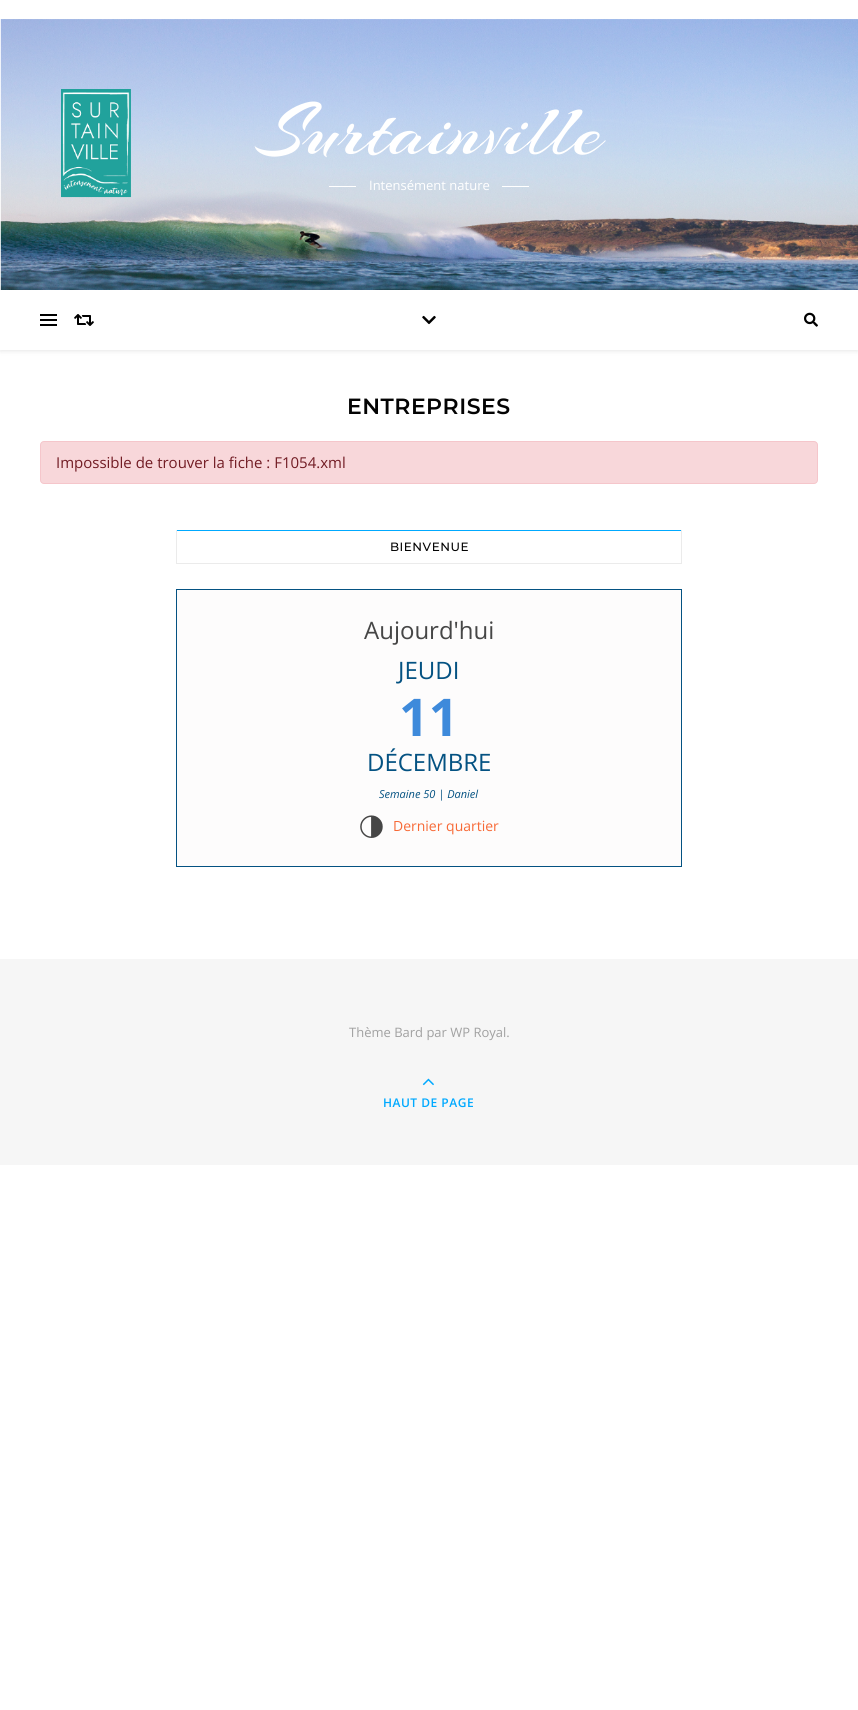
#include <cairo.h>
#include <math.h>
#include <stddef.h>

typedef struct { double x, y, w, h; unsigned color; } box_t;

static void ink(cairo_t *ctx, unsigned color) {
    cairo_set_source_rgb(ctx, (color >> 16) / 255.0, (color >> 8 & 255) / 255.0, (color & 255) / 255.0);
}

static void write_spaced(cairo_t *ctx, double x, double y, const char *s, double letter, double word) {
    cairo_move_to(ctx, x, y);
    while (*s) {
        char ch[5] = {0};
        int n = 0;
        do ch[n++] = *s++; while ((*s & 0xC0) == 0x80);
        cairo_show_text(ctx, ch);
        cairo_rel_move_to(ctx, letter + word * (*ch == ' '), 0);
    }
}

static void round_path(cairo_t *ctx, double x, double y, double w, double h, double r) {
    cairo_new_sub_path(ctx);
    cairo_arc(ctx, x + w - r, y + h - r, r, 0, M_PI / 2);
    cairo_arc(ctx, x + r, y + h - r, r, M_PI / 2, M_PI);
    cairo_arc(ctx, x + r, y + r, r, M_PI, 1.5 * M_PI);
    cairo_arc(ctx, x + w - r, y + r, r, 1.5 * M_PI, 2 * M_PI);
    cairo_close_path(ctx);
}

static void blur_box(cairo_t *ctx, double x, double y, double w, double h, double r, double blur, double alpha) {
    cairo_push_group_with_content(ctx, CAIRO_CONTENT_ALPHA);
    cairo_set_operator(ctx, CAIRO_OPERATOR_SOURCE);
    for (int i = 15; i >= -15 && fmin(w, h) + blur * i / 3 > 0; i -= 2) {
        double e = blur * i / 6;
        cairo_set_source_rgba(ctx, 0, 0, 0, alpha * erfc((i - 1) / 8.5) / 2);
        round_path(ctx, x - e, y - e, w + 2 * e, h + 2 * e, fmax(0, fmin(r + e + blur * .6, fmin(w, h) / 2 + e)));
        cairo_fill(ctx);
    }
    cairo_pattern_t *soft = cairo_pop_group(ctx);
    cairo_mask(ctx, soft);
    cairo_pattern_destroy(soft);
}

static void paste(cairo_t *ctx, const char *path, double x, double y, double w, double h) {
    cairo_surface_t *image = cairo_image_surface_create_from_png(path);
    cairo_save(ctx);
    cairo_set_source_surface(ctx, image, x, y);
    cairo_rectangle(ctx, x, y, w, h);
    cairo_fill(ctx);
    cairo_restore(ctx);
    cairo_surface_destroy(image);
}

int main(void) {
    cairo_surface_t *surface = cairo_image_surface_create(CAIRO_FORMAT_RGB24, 858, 1710);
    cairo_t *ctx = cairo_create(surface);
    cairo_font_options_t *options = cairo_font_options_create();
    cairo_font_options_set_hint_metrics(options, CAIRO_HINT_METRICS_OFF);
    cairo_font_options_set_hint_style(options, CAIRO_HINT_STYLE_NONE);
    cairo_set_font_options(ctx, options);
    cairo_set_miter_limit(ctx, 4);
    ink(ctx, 0xFFFFFF);
    cairo_paint(ctx);
    paste(ctx, "media/1.png", 0, 19, 858, 271);
    cairo_select_font_face(ctx, "Arizonia", CAIRO_FONT_SLANT_NORMAL, CAIRO_FONT_WEIGHT_NORMAL);
    cairo_set_font_size(ctx, 80);
    ink(ctx, 0xFFFFFF);
    cairo_move_to(ctx, 256, 154);
    cairo_show_text(ctx, "Surtainville");
    cairo_rectangle(ctx, 329, 186, 27, 1);
    cairo_fill(ctx);
    cairo_select_font_face(ctx, "Open Sans", CAIRO_FONT_SLANT_NORMAL, CAIRO_FONT_WEIGHT_NORMAL);
    cairo_set_font_size(ctx, 13);
    cairo_move_to(ctx, 369, 190);
    cairo_show_text(ctx, "Intensément nature");
    cairo_rectangle(ctx, 502, 186, 27, 1);
    cairo_fill(ctx);
    cairo_save(ctx);
    cairo_set_fill_rule(ctx, CAIRO_FILL_RULE_EVEN_ODD);
    cairo_new_path(ctx);
    cairo_move_to(ctx, 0, 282);
    cairo_line_to(ctx, 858, 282);
    cairo_line_to(ctx, 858, 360);
    cairo_line_to(ctx, 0, 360);
    cairo_close_path(ctx);
    cairo_move_to(ctx, 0, 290);
    cairo_line_to(ctx, 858, 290);
    cairo_line_to(ctx, 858, 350);
    cairo_line_to(ctx, 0, 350);
    cairo_close_path(ctx);
    cairo_clip(ctx);
    ink(ctx, 0x000000);
    blur_box(ctx, 0, 291, 858, 60, 0, 2.5, 0.1);
    cairo_restore(ctx);
    {
        static const box_t items[] = {
            {40, 314, 17, 2, 0x000000},
            {40, 319, 17, 2, 0x000000},
            {40, 324, 17, 2, 0x000000},
        };
        for (size_t i = 0; i < sizeof items / sizeof *items; i++) {
            ink(ctx, items[i].color);
            cairo_rectangle(ctx, items[i].x, items[i].y, items[i].w, items[i].h);
            cairo_fill(ctx);
        }
    }
    paste(ctx, "media/2.png", 74, 314, 20, 12);
    paste(ctx, "media/3.png", 422, 315, 14, 10);
    paste(ctx, "media/4.png", 804, 312, 14, 15);
    cairo_select_font_face(ctx, "Montserrat SemiBold", CAIRO_FONT_SLANT_NORMAL, CAIRO_FONT_WEIGHT_NORMAL);
    cairo_set_font_size(ctx, 22);
    ink(ctx, 0x030303);
    write_spaced(ctx, 347, 414, "ENTREPRISES", 0.5, 0);
    ink(ctx, 0xF8D7DA);
    round_path(ctx, 40.5, 441.5, 777, 42, 3.5);
    cairo_fill_preserve(ctx);
    ink(ctx, 0xF5C6CB);
    cairo_set_line_width(ctx, 1);
    cairo_stroke(ctx);
    cairo_select_font_face(ctx, "Open Sans", CAIRO_FONT_SLANT_NORMAL, CAIRO_FONT_WEIGHT_NORMAL);
    cairo_set_font_size(ctx, 15);
    ink(ctx, 0x721C24);
    cairo_move_to(ctx, 56, 468);
    cairo_show_text(ctx, "Impossible de trouver la fiche : F1054.xml");
    {
        static const box_t items[] = {
            {176, 530, 506, 1, 0x00A9FF},
            {681, 530, 1, 34, 0xEBEBEB},
            {176, 563, 506, 1, 0xEBEBEB},
            {176, 530, 1, 34, 0xEBEBEB},
        };
        for (size_t i = 0; i < sizeof items / sizeof *items; i++) {
            ink(ctx, items[i].color);
            cairo_rectangle(ctx, items[i].x, items[i].y, items[i].w, items[i].h);
            cairo_fill(ctx);
        }
    }
    cairo_select_font_face(ctx, "Montserrat Medium", CAIRO_FONT_SLANT_NORMAL, CAIRO_FONT_WEIGHT_NORMAL);
    cairo_set_font_size(ctx, 12);
    ink(ctx, 0x030303);
    write_spaced(ctx, 390, 551, "BIENVENUE", 0.5, 0);
    ink(ctx, 0xFDFCFC);
    cairo_rectangle(ctx, 176.5, 589.5, 505, 277);
    cairo_fill_preserve(ctx);
    ink(ctx, 0x045282);
    cairo_stroke(ctx);
    cairo_select_font_face(ctx, "Open Sans", CAIRO_FONT_SLANT_NORMAL, CAIRO_FONT_WEIGHT_NORMAL);
    cairo_set_font_size(ctx, 24);
    ink(ctx, 0x464646);
    cairo_move_to(ctx, 364, 639);
    cairo_show_text(ctx, "Aujourd'hui");
    ink(ctx, 0x045282);
    cairo_move_to(ctx, 398, 679);
    cairo_show_text(ctx, "JEUDI");
    cairo_select_font_face(ctx, "Open Sans", CAIRO_FONT_SLANT_NORMAL, CAIRO_FONT_WEIGHT_BOLD);
    cairo_set_font_size(ctx, 52);
    ink(ctx, 0x3E8ADB);
    cairo_move_to(ctx, 399, 736);
    cairo_show_text(ctx, "11");
    cairo_select_font_face(ctx, "Open Sans", CAIRO_FONT_SLANT_NORMAL, CAIRO_FONT_WEIGHT_NORMAL);
    cairo_set_font_size(ctx, 24);
    ink(ctx, 0x045282);
    cairo_move_to(ctx, 367, 771);
    cairo_show_text(ctx, "DÉCEMBRE");
    cairo_select_font_face(ctx, "Open Sans", CAIRO_FONT_SLANT_ITALIC, CAIRO_FONT_WEIGHT_NORMAL);
    cairo_set_font_size(ctx, 11);
    cairo_move_to(ctx, 379, 798);
    cairo_show_text(ctx, "Semaine 50 | Daniel");
    cairo_select_font_face(ctx, "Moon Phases", CAIRO_FONT_SLANT_NORMAL, CAIRO_FONT_WEIGHT_BOLD);
    cairo_set_font_size(ctx, 24);
    ink(ctx, 0x464646);
    cairo_move_to(ctx, 359, 839);
    cairo_show_text(ctx, "T");
    cairo_select_font_face(ctx, "Open Sans", CAIRO_FONT_SLANT_NORMAL, CAIRO_FONT_WEIGHT_NORMAL);
    cairo_set_font_size(ctx, 14);
    ink(ctx, 0xF76936);
    cairo_move_to(ctx, 393, 831);
    cairo_show_text(ctx, "Dernier quartier");
    ink(ctx, 0xF6F6F6);
    cairo_rectangle(ctx, 0, 959, 858, 206);
    cairo_fill(ctx);
    cairo_set_font_size(ctx, 13);
    ink(ctx, 0xA1A1A1);
    cairo_move_to(ctx, 349, 1037);
    cairo_show_text(ctx, "Thème Bard par WP Royal.");
    paste(ctx, "media/5.png", 422, 1078, 12, 8);
    cairo_select_font_face(ctx, "Open Sans SemiBold", CAIRO_FONT_SLANT_NORMAL, CAIRO_FONT_WEIGHT_NORMAL);
    cairo_set_font_size(ctx, 12);
    ink(ctx, 0x00A9FF);
    write_spaced(ctx, 383, 1107, "HAUT DE PAGE", 0.5, 0);
    cairo_surface_write_to_png(surface, "image.png");
    cairo_font_options_destroy(options);
    cairo_destroy(ctx);
    cairo_surface_destroy(surface);
    return 0;
}
